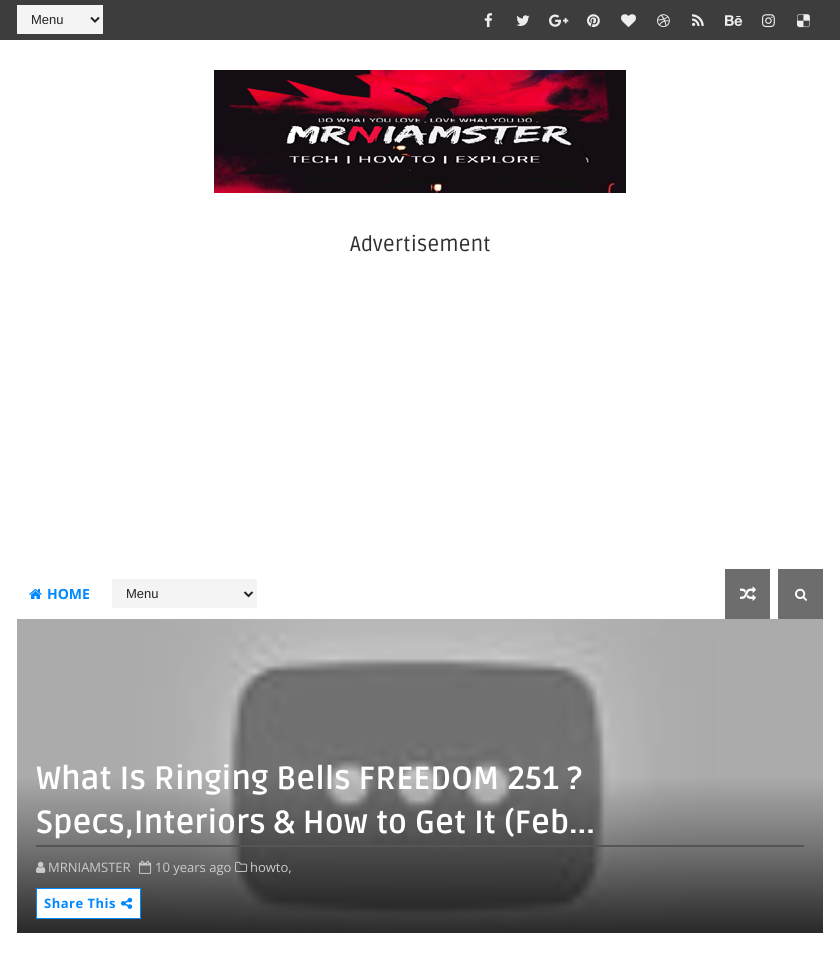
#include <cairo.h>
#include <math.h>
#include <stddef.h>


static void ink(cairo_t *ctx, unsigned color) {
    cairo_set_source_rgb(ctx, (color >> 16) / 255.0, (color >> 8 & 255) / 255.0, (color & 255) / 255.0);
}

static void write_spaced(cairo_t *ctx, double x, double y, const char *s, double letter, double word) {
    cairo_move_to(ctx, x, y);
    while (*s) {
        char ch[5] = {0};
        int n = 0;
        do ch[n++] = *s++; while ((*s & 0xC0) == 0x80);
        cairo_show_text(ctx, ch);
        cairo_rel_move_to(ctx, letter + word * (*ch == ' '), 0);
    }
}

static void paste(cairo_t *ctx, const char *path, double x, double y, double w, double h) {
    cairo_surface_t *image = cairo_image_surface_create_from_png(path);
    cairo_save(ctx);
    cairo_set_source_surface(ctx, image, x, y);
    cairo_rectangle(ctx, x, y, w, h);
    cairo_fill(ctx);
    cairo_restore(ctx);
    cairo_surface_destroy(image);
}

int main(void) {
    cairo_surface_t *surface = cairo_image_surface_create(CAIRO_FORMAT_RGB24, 840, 969);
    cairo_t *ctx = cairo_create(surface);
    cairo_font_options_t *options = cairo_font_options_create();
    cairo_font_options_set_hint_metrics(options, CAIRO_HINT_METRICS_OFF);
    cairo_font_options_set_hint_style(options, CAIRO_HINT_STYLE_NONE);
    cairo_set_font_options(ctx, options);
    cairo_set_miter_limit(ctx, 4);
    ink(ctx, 0xFFFFFF);
    cairo_paint(ctx);
    ink(ctx, 0x3D3D3D);
    cairo_rectangle(ctx, 0, 0, 840, 40);
    cairo_fill(ctx);
    ink(ctx, 0xF4F4F4);
    cairo_rectangle(ctx, 17, 5, 86, 29);
    cairo_fill(ctx);
    cairo_new_path(ctx);
    cairo_move_to(ctx, 91, 17.5);
    cairo_line_to(ctx, 95, 21.5);
    cairo_line_to(ctx, 99, 17.5);
    ink(ctx, 0x222222);
    cairo_stroke(ctx);
    cairo_select_font_face(ctx, "Liberation Sans", CAIRO_FONT_SLANT_NORMAL, CAIRO_FONT_WEIGHT_NORMAL);
    cairo_set_font_size(ctx, 13);
    cairo_move_to(ctx, 31, 24);
    cairo_show_text(ctx, "Menu");
    paste(ctx, "media/1.png", 484, 13, 9, 15);
    paste(ctx, "media/2.png", 516, 15, 14, 11);
    paste(ctx, "media/3.png", 549, 14, 20, 13);
    paste(ctx, "media/4.png", 587, 14, 13, 14);
    paste(ctx, "media/5.png", 621, 14, 15, 13);
    paste(ctx, "media/6.png", 657, 14, 13, 14);
    paste(ctx, "media/7.png", 692, 14, 12, 12);
    paste(ctx, "media/8.png", 725, 15, 18, 11);
    paste(ctx, "media/9.png", 762, 14, 13, 14);
    paste(ctx, "media/10.png", 797, 14, 13, 14);
    paste(ctx, "media/11.png", 214, 70, 412, 123);
    cairo_select_font_face(ctx, "Ruda", CAIRO_FONT_SLANT_NORMAL, CAIRO_FONT_WEIGHT_NORMAL);
    cairo_set_font_size(ctx, 21);
    ink(ctx, 0x2E2E2E);
    cairo_move_to(ctx, 350, 251);
    cairo_show_text(ctx, "Advertisement");
    paste(ctx, "media/12.png", 29, 589, 13, 10);
    cairo_select_font_face(ctx, "Open Sans", CAIRO_FONT_SLANT_NORMAL, CAIRO_FONT_WEIGHT_BOLD);
    cairo_set_font_size(ctx, 14);
    ink(ctx, 0x0088FF);
    cairo_move_to(ctx, 47, 599);
    cairo_show_text(ctx, "HOME");
    ink(ctx, 0xF4F4F4);
    cairo_rectangle(ctx, 112, 579, 145, 29);
    cairo_fill(ctx);
    cairo_new_path(ctx);
    cairo_move_to(ctx, 244.5, 592);
    cairo_line_to(ctx, 248.5, 596);
    cairo_line_to(ctx, 252.5, 592);
    ink(ctx, 0x222222);
    cairo_stroke(ctx);
    cairo_select_font_face(ctx, "Liberation Sans", CAIRO_FONT_SLANT_NORMAL, CAIRO_FONT_WEIGHT_NORMAL);
    cairo_set_font_size(ctx, 13);
    cairo_move_to(ctx, 126, 598);
    cairo_show_text(ctx, "Menu");
    ink(ctx, 0x6D6D6D);
    cairo_rectangle(ctx, 725, 569, 45, 50);
    cairo_fill(ctx);
    paste(ctx, "media/13.png", 740, 586, 16, 15);
    cairo_rectangle(ctx, 778, 569, 45, 50);
    cairo_fill(ctx);
    paste(ctx, "media/14.png", 795, 588, 12, 13);
    paste(ctx, "media/15.png", 17, 619, 806, 314);
    ink(ctx, 0x555555);
    cairo_rectangle(ctx, 36, 845, 768, 2);
    cairo_fill(ctx);
    cairo_select_font_face(ctx, "Ruda", CAIRO_FONT_SLANT_NORMAL, CAIRO_FONT_WEIGHT_BOLD);
    cairo_set_font_size(ctx, 32);
    ink(ctx, 0xFFFFFF);
    cairo_move_to(ctx, 36, 789);
    cairo_show_text(ctx, "What Is Ringing Bells FREEDOM 251 ?");
    cairo_move_to(ctx, 36, 833);
    cairo_show_text(ctx, "Specs,Interiors & How to Get It (Feb...");
    paste(ctx, "media/16.png", 36, 861, 10, 12);
    cairo_select_font_face(ctx, "Open Sans", CAIRO_FONT_SLANT_NORMAL, CAIRO_FONT_WEIGHT_NORMAL);
    cairo_set_font_size(ctx, 13);
    ink(ctx, 0xCBCBCB);
    cairo_move_to(ctx, 48, 872);
    cairo_show_text(ctx, "MRNIAMSTER");
    paste(ctx, "media/17.png", 139, 860, 13, 14);
    cairo_move_to(ctx, 155, 872);
    cairo_show_text(ctx, "10 years ago");
    paste(ctx, "media/18.png", 235, 861, 13, 11);
    cairo_move_to(ctx, 250, 872);
    cairo_show_text(ctx, "howto,");
    ink(ctx, 0xFFFFFF);
    cairo_rectangle(ctx, 36.5, 888.5, 104, 30);
    cairo_fill_preserve(ctx);
    ink(ctx, 0x0088FF);
    cairo_set_line_width(ctx, 1);
    cairo_stroke(ctx);
    cairo_select_font_face(ctx, "Open Sans", CAIRO_FONT_SLANT_NORMAL, CAIRO_FONT_WEIGHT_BOLD);
    write_spaced(ctx, 44, 908, "Share This", 0.5, 0);
    paste(ctx, "media/19.png", 121, 897, 12, 12);
    cairo_surface_write_to_png(surface, "image.png");
    cairo_font_options_destroy(options);
    cairo_destroy(ctx);
    cairo_surface_destroy(surface);
    return 0;
}
